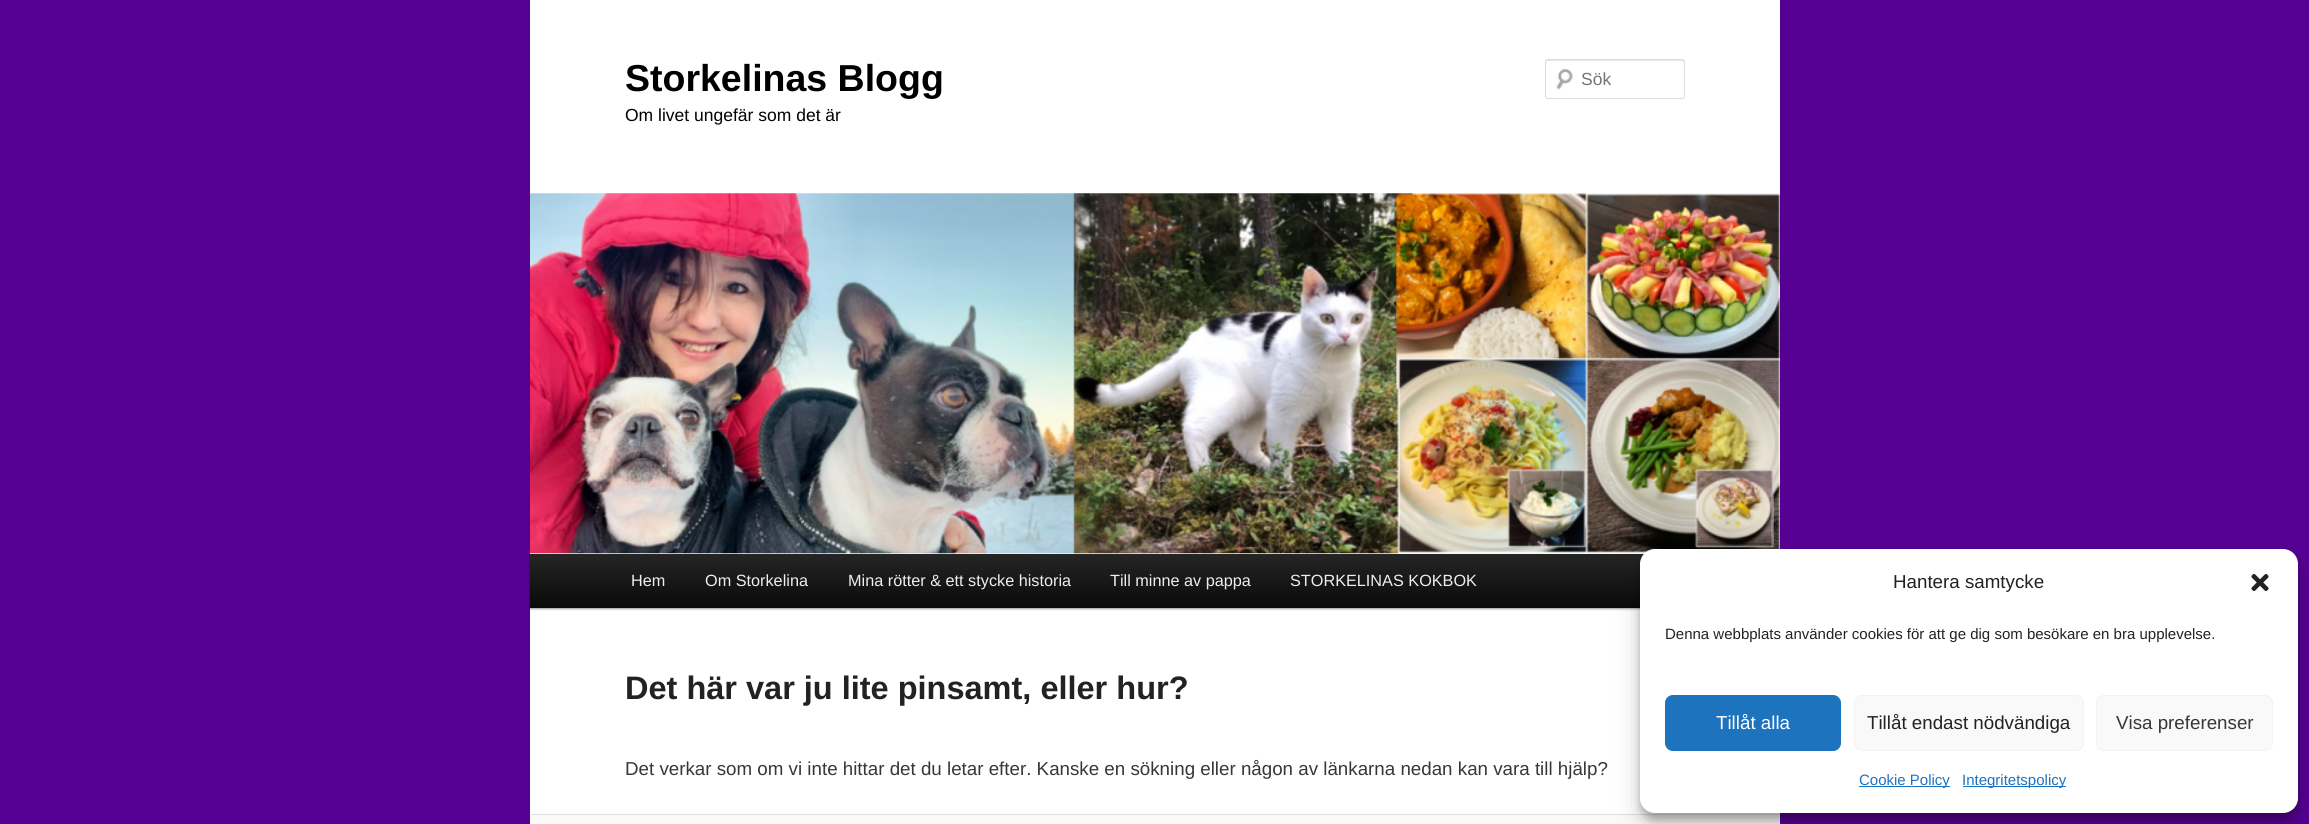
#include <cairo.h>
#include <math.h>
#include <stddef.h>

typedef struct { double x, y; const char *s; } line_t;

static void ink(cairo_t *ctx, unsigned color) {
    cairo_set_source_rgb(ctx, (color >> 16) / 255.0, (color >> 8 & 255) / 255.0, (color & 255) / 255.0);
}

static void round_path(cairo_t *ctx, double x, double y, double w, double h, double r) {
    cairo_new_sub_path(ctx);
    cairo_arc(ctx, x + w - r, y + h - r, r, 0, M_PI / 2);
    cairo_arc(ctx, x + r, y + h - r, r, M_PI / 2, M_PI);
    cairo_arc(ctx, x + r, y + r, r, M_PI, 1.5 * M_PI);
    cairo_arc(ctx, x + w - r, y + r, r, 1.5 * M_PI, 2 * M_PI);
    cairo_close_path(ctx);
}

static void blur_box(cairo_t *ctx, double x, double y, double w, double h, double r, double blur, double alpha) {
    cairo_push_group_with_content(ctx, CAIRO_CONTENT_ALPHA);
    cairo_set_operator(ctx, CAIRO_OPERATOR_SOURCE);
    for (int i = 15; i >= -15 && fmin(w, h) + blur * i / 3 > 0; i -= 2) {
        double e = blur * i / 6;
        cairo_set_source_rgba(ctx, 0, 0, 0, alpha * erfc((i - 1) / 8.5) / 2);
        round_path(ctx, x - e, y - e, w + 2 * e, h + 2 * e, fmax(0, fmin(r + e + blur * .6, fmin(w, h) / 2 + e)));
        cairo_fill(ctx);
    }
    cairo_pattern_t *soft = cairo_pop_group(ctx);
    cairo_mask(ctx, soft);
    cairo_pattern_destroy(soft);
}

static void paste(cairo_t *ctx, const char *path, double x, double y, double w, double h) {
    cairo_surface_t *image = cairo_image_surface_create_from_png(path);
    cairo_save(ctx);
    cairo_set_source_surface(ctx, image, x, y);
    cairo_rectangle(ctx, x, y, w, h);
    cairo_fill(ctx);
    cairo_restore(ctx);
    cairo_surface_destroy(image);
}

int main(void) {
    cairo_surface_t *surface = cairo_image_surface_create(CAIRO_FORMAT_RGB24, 2309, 824);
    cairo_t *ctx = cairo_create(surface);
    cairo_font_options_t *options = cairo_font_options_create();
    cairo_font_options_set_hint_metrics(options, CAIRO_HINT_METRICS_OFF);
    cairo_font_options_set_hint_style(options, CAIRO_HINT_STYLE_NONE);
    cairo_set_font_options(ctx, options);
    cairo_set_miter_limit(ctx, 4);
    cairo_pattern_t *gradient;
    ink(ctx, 0x560093);
    cairo_paint(ctx);
    ink(ctx, 0xFFFFFF);
    cairo_rectangle(ctx, 530, 0, 1250, 824);
    cairo_fill(ctx);
    cairo_select_font_face(ctx, "Liberation Sans", CAIRO_FONT_SLANT_NORMAL, CAIRO_FONT_WEIGHT_BOLD);
    cairo_set_font_size(ctx, 37.5);
    ink(ctx, 0x000000);
    cairo_move_to(ctx, 625, 91);
    cairo_show_text(ctx, "Storkelinas Blogg");
    cairo_select_font_face(ctx, "Liberation Sans", CAIRO_FONT_SLANT_NORMAL, CAIRO_FONT_WEIGHT_NORMAL);
    cairo_set_font_size(ctx, 17.5);
    cairo_move_to(ctx, 625, 121);
    cairo_show_text(ctx, "Om livet ungefär som det är");
    paste(ctx, "media/1.png", 1556, 68, 17, 22);
    ink(ctx, 0xE6E6E6);
    cairo_new_path(ctx);
    cairo_move_to(ctx, 1548, 61);
    cairo_line_to(ctx, 1682, 61);
    cairo_line_to(ctx, 1684, 62);
    cairo_curve_to(ctx, 1684, 61, 1684, 60, 1683, 60);
    cairo_line_to(ctx, 1547, 60);
    cairo_curve_to(ctx, 1546, 60, 1546, 61, 1546, 62);
    cairo_close_path(ctx);
    cairo_fill(ctx);
    round_path(ctx, 1545.5, 59.5, 139, 39, 2);
    ink(ctx, 0xDDDDDD);
    cairo_set_line_width(ctx, 1);
    cairo_stroke(ctx);
    ink(ctx, 0x757575);
    cairo_move_to(ctx, 1581, 85);
    cairo_show_text(ctx, "Sök");
    ink(ctx, 0x000000);
    blur_box(ctx, 530, 555, 1250, 54, 0, 1, 0.4);
    paste(ctx, "media/2.png", 530, 193, 1250, 361);
    gradient = cairo_pattern_create_linear(1155, 554, 1155, 608);
    cairo_pattern_add_color_stop_rgba(gradient, 0, 0.145, 0.145, 0.145, 1);
    cairo_pattern_add_color_stop_rgba(gradient, 1, 0.039, 0.039, 0.039, 1);
    cairo_set_source(ctx, gradient);
    cairo_pattern_destroy(gradient);
    cairo_rectangle(ctx, 530, 554, 1114, 54);
    cairo_fill(ctx);
    cairo_set_font_size(ctx, 16.25);
    ink(ctx, 0xEEEEEE);
    {
        static const line_t items[] = {
            {631, 586, "Hem"},
            {705, 586, "Om Storkelina"},
            {848, 586, "Mina rötter & ett stycke historia"},
            {1110, 586, "Till minne av pappa"},
            {1290, 586, "STORKELINAS KOKBOK"},
        };
        for (size_t i = 0; i < sizeof items / sizeof *items; i++) {
            cairo_move_to(ctx, items[i].x, items[i].y);
            cairo_show_text(ctx, items[i].s);
        }
    }
    cairo_select_font_face(ctx, "Liberation Sans", CAIRO_FONT_SLANT_NORMAL, CAIRO_FONT_WEIGHT_BOLD);
    cairo_set_font_size(ctx, 32.5);
    ink(ctx, 0x222222);
    cairo_move_to(ctx, 625, 699);
    cairo_show_text(ctx, "Det här var ju lite pinsamt, eller hur?");
    cairo_select_font_face(ctx, "Liberation Sans", CAIRO_FONT_SLANT_NORMAL, CAIRO_FONT_WEIGHT_NORMAL);
    cairo_set_font_size(ctx, 18.75);
    ink(ctx, 0x373737);
    cairo_move_to(ctx, 625, 775);
    cairo_show_text(ctx, "Det verkar som om vi inte hittar det du letar efter. Kanske en sökning eller någon av länkarna nedan kan vara till hjälp?");
    ink(ctx, 0xF9F9F9);
    cairo_rectangle(ctx, 531, 815, 1248, 9);
    cairo_fill(ctx);
    ink(ctx, 0xDDDDDD);
    cairo_rectangle(ctx, 531, 814, 1248, 1);
    cairo_fill(ctx);
    ink(ctx, 0x000000);
    blur_box(ctx, 1640, 556, 658, 264, 15, 4, 0.23);
    blur_box(ctx, 1640, 561, 658, 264, 15, 12.5, 0.19);
    ink(ctx, 0xFFFFFF);
    round_path(ctx, 1640, 549, 658, 264, 15);
    cairo_fill(ctx);
    ink(ctx, 0x222222);
    cairo_move_to(ctx, 1893, 588);
    cairo_show_text(ctx, "Hantera samtycke");
    paste(ctx, "media/3.png", 2251, 573, 18, 18);
    cairo_set_font_size(ctx, 15);
    cairo_move_to(ctx, 1665, 639);
    cairo_show_text(ctx, "Denna webbplats använder cookies för att ge dig som besökare en bra upplevelse.");
    ink(ctx, 0x1E73BE);
    round_path(ctx, 1665.5, 695.5, 175, 55, 7.5);
    cairo_fill_preserve(ctx);
    cairo_stroke(ctx);
    cairo_set_font_size(ctx, 18.75);
    ink(ctx, 0xFFFFFF);
    cairo_move_to(ctx, 1716, 729);
    cairo_show_text(ctx, "Tillåt alla");
    ink(ctx, 0xF9F9F9);
    round_path(ctx, 1854.5, 695.5, 229, 55, 7.5);
    cairo_fill_preserve(ctx);
    ink(ctx, 0xF2F2F2);
    cairo_stroke(ctx);
    ink(ctx, 0x222222);
    cairo_move_to(ctx, 1867, 729);
    cairo_show_text(ctx, "Tillåt endast nödvändiga");
    ink(ctx, 0xF9F9F9);
    round_path(ctx, 2096.5, 695.5, 176, 55, 7.5);
    cairo_fill_preserve(ctx);
    ink(ctx, 0xF2F2F2);
    cairo_stroke(ctx);
    ink(ctx, 0x373737);
    cairo_move_to(ctx, 2116, 729);
    cairo_show_text(ctx, "Visa preferenser");
    ink(ctx, 0x1E73BE);
    cairo_rectangle(ctx, 1859, 786, 91, 1);
    cairo_fill(ctx);
    cairo_set_font_size(ctx, 15);
    cairo_move_to(ctx, 1859, 785);
    cairo_show_text(ctx, "Cookie Policy");
    cairo_rectangle(ctx, 1963, 786, 103, 1);
    cairo_fill(ctx);
    cairo_move_to(ctx, 1962, 785);
    cairo_show_text(ctx, "Integritetspolicy");
    cairo_surface_write_to_png(surface, "image.png");
    cairo_font_options_destroy(options);
    cairo_destroy(ctx);
    cairo_surface_destroy(surface);
    return 0;
}
